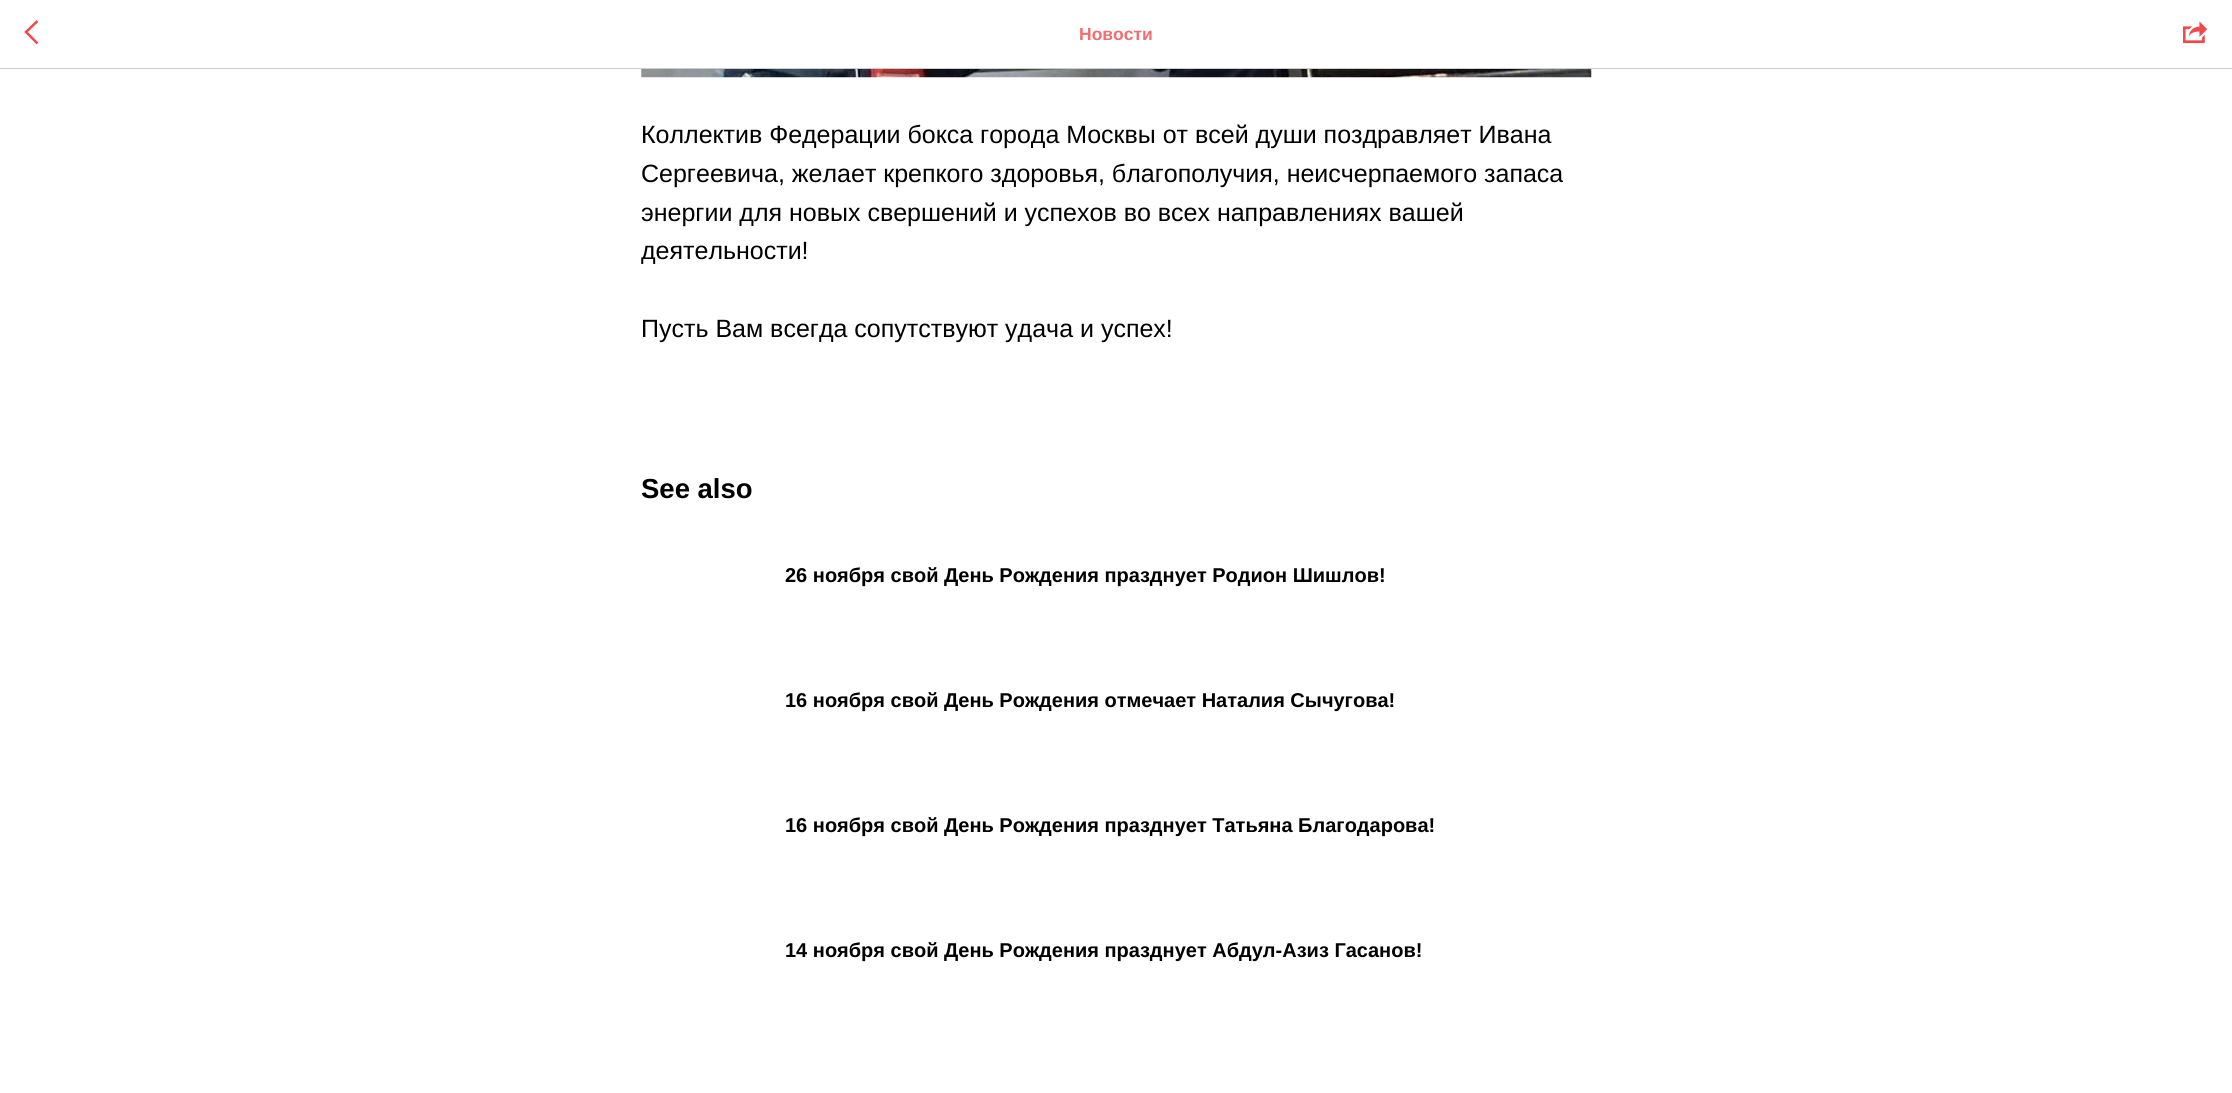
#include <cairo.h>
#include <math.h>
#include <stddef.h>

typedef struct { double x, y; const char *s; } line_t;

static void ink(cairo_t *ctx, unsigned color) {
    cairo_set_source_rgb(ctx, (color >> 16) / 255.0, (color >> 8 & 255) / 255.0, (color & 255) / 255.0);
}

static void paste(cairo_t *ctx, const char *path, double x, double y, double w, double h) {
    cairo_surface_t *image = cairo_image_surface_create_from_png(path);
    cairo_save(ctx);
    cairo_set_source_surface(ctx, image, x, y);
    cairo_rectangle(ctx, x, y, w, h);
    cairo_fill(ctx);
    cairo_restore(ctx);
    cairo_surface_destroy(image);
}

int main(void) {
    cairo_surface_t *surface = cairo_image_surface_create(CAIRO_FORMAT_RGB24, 2232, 1093);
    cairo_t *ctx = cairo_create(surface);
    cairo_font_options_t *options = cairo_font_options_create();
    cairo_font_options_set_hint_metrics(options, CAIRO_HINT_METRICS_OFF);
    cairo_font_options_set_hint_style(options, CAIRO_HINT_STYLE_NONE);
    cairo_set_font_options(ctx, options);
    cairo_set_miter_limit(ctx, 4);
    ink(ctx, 0xFFFFFF);
    cairo_paint(ctx);
    ink(ctx, 0xCCCCCC);
    cairo_rectangle(ctx, 0, 68, 2232, 1);
    cairo_fill(ctx);
    cairo_new_path(ctx);
    cairo_move_to(ctx, 37.5, 43.5);
    cairo_line_to(ctx, 26, 32);
    cairo_line_to(ctx, 37.5, 21);
    ink(ctx, 0xEF494B);
    cairo_set_line_width(ctx, 2.5);
    cairo_stroke(ctx);
    cairo_select_font_face(ctx, "Liberation Sans", CAIRO_FONT_SLANT_NORMAL, CAIRO_FONT_WEIGHT_BOLD);
    cairo_set_font_size(ctx, 17.5);
    ink(ctx, 0xF26D6F);
    cairo_move_to(ctx, 1079, 40);
    cairo_show_text(ctx, "Новости");
    paste(ctx, "media/1.png", 2183, 21, 25, 23);
    paste(ctx, "media/2.png", 641, 69, 951, 9);
    cairo_select_font_face(ctx, "Liberation Sans", CAIRO_FONT_SLANT_NORMAL, CAIRO_FONT_WEIGHT_NORMAL);
    cairo_set_font_size(ctx, 25);
    ink(ctx, 0x000000);
    {
        static const line_t items[] = {
            {641, 143, "Коллектив Федерации бокса города Москвы от всей души поздравляет Ивана"},
            {641, 182, "Сергеевича, желает крепкого здоровья, благополучия, неисчерпаемого запаса"},
            {641, 221, "энергии для новых свершений и успехов во всех направлениях вашей"},
            {641, 259, "деятельности!"},
            {641, 337, "Пусть Вам всегда сопутствуют удача и успех!"},
        };
        for (size_t i = 0; i < sizeof items / sizeof *items; i++) {
            cairo_move_to(ctx, items[i].x, items[i].y);
            cairo_show_text(ctx, items[i].s);
        }
    }
    cairo_select_font_face(ctx, "Liberation Sans", CAIRO_FONT_SLANT_NORMAL, CAIRO_FONT_WEIGHT_BOLD);
    cairo_set_font_size(ctx, 27.5);
    cairo_move_to(ctx, 641, 498);
    cairo_show_text(ctx, "See also");
    cairo_set_font_size(ctx, 20);
    {
        static const line_t items[] = {
            {785, 582, "26 ноября свой День Рождения празднует Родион Шишлов!"},
            {785, 707, "16 ноября свой День Рождения отмечает Наталия Сычугова!"},
            {785, 832, "16 ноября свой День Рождения празднует Татьяна Благодарова!"},
            {785, 957, "14 ноября свой День Рождения празднует Абдул-Азиз Гасанов!"},
        };
        for (size_t i = 0; i < sizeof items / sizeof *items; i++) {
            cairo_move_to(ctx, items[i].x, items[i].y);
            cairo_show_text(ctx, items[i].s);
        }
    }
    cairo_surface_write_to_png(surface, "image.png");
    cairo_font_options_destroy(options);
    cairo_destroy(ctx);
    cairo_surface_destroy(surface);
    return 0;
}
